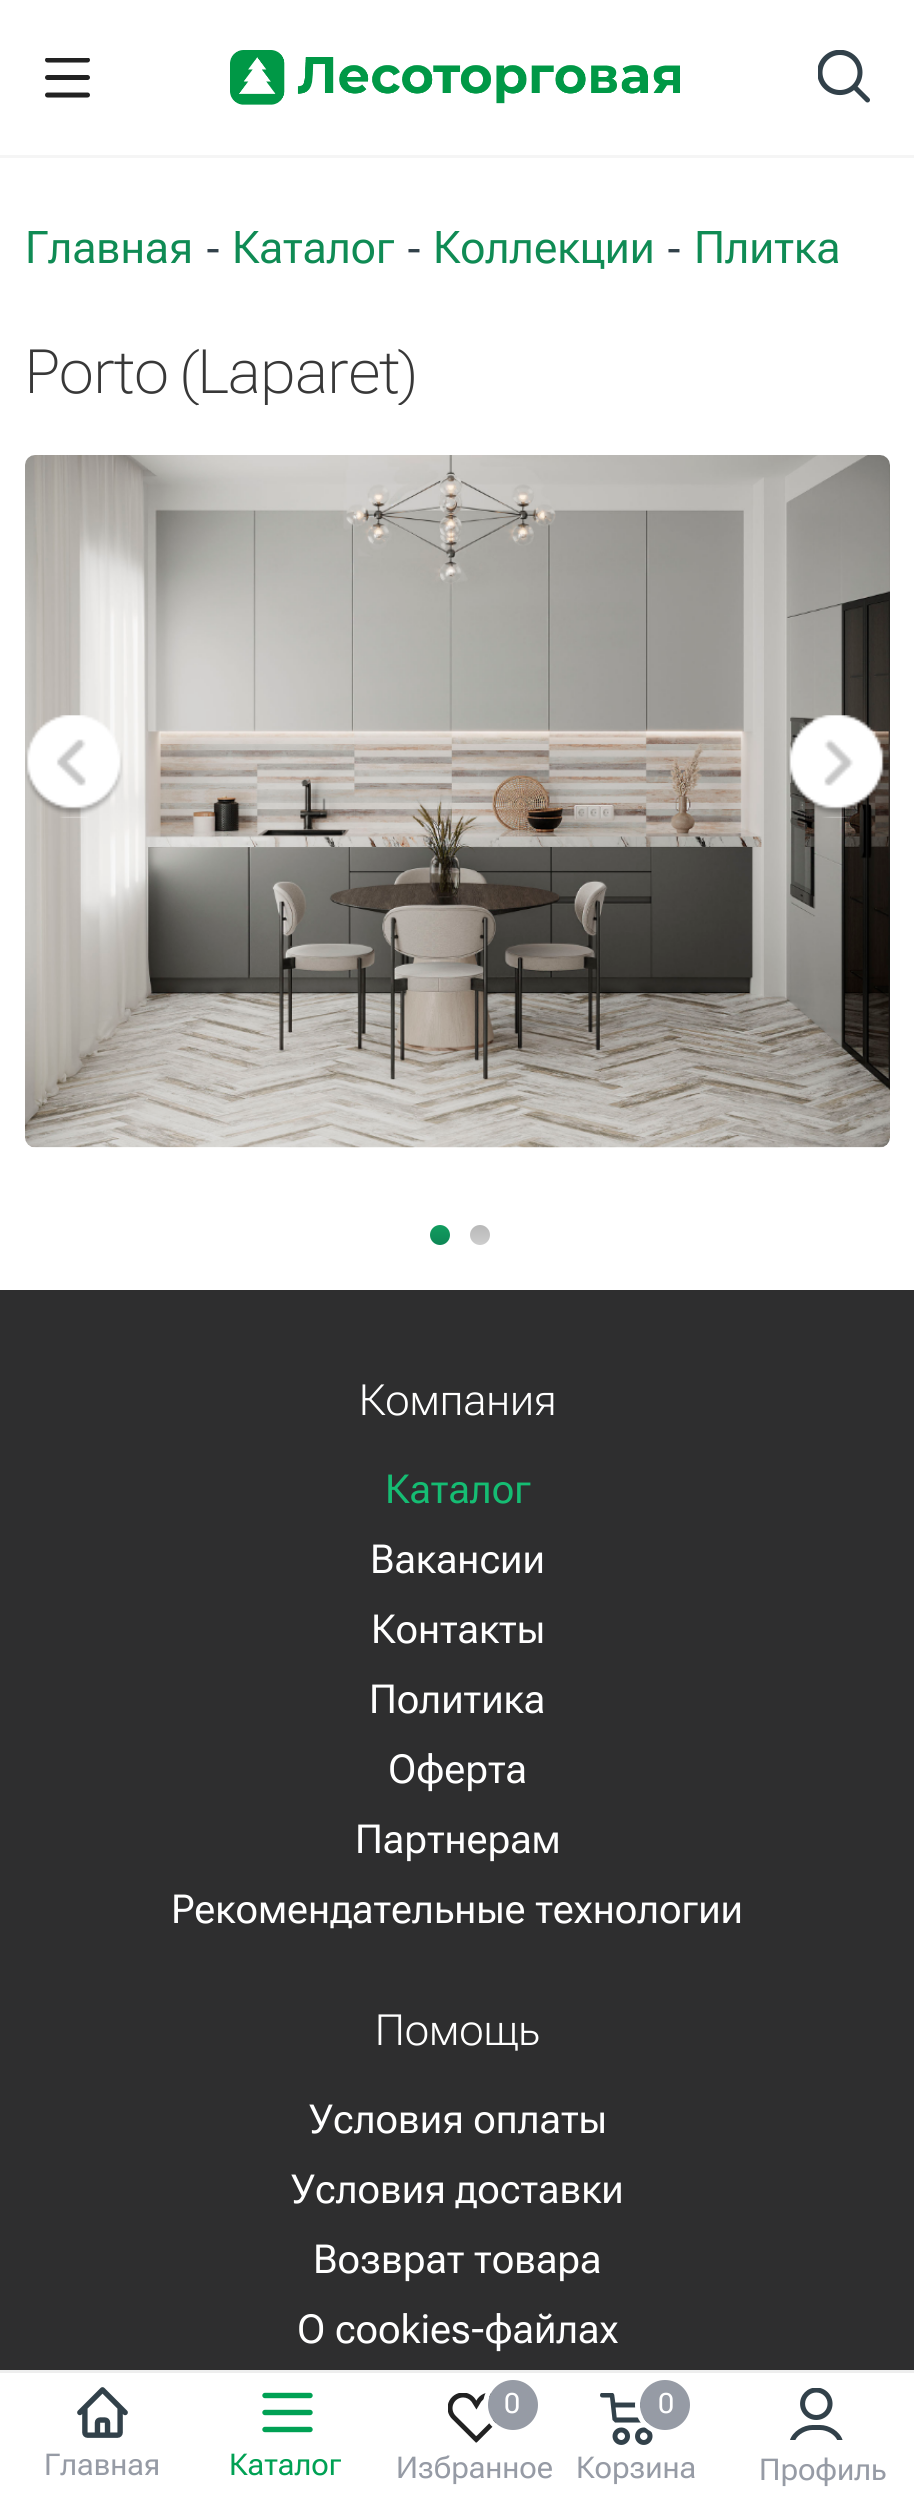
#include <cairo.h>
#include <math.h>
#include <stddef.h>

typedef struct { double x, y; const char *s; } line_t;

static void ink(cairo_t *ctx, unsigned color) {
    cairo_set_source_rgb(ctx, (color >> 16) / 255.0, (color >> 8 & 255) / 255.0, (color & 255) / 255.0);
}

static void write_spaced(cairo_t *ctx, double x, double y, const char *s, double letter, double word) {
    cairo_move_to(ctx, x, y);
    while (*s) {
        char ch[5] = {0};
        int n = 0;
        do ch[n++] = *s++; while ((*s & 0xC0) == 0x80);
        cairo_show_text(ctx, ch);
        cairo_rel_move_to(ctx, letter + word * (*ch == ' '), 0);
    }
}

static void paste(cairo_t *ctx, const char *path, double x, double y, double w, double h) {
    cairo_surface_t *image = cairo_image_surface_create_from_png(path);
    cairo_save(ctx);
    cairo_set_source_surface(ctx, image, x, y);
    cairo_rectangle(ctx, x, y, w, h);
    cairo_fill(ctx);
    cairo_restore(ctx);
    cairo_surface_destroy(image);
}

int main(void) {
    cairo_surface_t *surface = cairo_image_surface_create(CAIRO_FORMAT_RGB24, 914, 2493);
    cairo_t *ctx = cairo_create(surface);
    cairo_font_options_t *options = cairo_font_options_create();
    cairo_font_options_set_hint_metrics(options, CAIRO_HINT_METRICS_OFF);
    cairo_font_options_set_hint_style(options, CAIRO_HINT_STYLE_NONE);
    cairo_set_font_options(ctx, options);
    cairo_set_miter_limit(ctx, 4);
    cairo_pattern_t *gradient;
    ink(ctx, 0xFFFFFF);
    cairo_paint(ctx);
    cairo_select_font_face(ctx, "Roboto Flex", CAIRO_FONT_SLANT_NORMAL, CAIRO_FONT_WEIGHT_NORMAL);
    cairo_set_font_size(ctx, 45);
    ink(ctx, 0x0F8B54);
    cairo_move_to(ctx, 25, 263);
    cairo_show_text(ctx, "Главная");
    cairo_select_font_face(ctx, "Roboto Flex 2", CAIRO_FONT_SLANT_NORMAL, CAIRO_FONT_WEIGHT_NORMAL);
    cairo_set_font_size(ctx, 40);
    ink(ctx, 0x32414A);
    cairo_move_to(ctx, 206, 263);
    cairo_show_text(ctx, "-");
    cairo_select_font_face(ctx, "Roboto Flex", CAIRO_FONT_SLANT_NORMAL, CAIRO_FONT_WEIGHT_NORMAL);
    cairo_set_font_size(ctx, 45);
    ink(ctx, 0x0F8B54);
    cairo_move_to(ctx, 232, 263);
    cairo_show_text(ctx, "Каталог");
    cairo_select_font_face(ctx, "Roboto Flex 2", CAIRO_FONT_SLANT_NORMAL, CAIRO_FONT_WEIGHT_NORMAL);
    cairo_set_font_size(ctx, 40);
    ink(ctx, 0x32414A);
    cairo_move_to(ctx, 407, 263);
    cairo_show_text(ctx, "-");
    cairo_select_font_face(ctx, "Roboto Flex", CAIRO_FONT_SLANT_NORMAL, CAIRO_FONT_WEIGHT_NORMAL);
    cairo_set_font_size(ctx, 45);
    ink(ctx, 0x0F8B54);
    cairo_move_to(ctx, 433, 263);
    cairo_show_text(ctx, "Коллекции");
    cairo_select_font_face(ctx, "Roboto Flex 2", CAIRO_FONT_SLANT_NORMAL, CAIRO_FONT_WEIGHT_NORMAL);
    cairo_set_font_size(ctx, 40);
    ink(ctx, 0x32414A);
    cairo_move_to(ctx, 667, 263);
    cairo_show_text(ctx, "-");
    cairo_select_font_face(ctx, "Roboto Flex", CAIRO_FONT_SLANT_NORMAL, CAIRO_FONT_WEIGHT_NORMAL);
    cairo_set_font_size(ctx, 45);
    ink(ctx, 0x0F8B54);
    cairo_move_to(ctx, 694, 263);
    cairo_show_text(ctx, "Плитка");
    cairo_select_font_face(ctx, "Roboto Flex Thin", CAIRO_FONT_SLANT_NORMAL, CAIRO_FONT_WEIGHT_NORMAL);
    cairo_set_font_size(ctx, 61.25);
    ink(ctx, 0x383838);
    write_spaced(ctx, 25, 393, "Porto (Laparet)", 0, -4);
    ink(ctx, 0xFFFFFF);
    cairo_rectangle(ctx, 197, 405, 205, 1);
    cairo_fill(ctx);
    paste(ctx, "media/1.png", 25, 455, 865, 693);
    paste(ctx, "media/2.png", 25, 715, 98, 103);
    paste(ctx, "media/3.png", 788, 715, 102, 103);
    gradient = cairo_pattern_create_linear(440, 1225, 440, 1245);
    cairo_pattern_add_color_stop_rgba(gradient, 0, 0.067, 0.616, 0.373, 1);
    cairo_pattern_add_color_stop_rgba(gradient, 1, 0.055, 0.525, 0.333, 1);
    cairo_set_source(ctx, gradient);
    cairo_pattern_destroy(gradient);
    cairo_arc(ctx, 440, 1235, 10, 0, 2 * M_PI);
    cairo_fill(ctx);
    gradient = cairo_pattern_create_linear(480, 1225, 480, 1245);
    cairo_pattern_add_color_stop_rgba(gradient, 0, 0.725, 0.725, 0.725, 1);
    cairo_pattern_add_color_stop_rgba(gradient, 1, 0.804, 0.804, 0.804, 1);
    cairo_set_source(ctx, gradient);
    cairo_pattern_destroy(gradient);
    cairo_arc(ctx, 480, 1235, 10, 0, 2 * M_PI);
    cairo_fill(ctx);
    ink(ctx, 0xF5F5F5);
    cairo_rectangle(ctx, 0, 155, 914, 3);
    cairo_fill(ctx);
    paste(ctx, "media/4.png", 45, 58, 45, 40);
    paste(ctx, "media/5.png", 230, 50, 450, 55);
    paste(ctx, "media/6.png", 818, 50, 52, 53);
    ink(ctx, 0xEEEEEE);
    cairo_rectangle(ctx, 0, 2370, 914, 3);
    cairo_fill(ctx);
    paste(ctx, "media/7.png", 77, 2387, 51, 51);
    cairo_select_font_face(ctx, "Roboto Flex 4", CAIRO_FONT_SLANT_NORMAL, CAIRO_FONT_WEIGHT_NORMAL);
    cairo_set_font_size(ctx, 30);
    ink(ctx, 0x969BA5);
    cairo_move_to(ctx, 44, 2475);
    cairo_show_text(ctx, "Главная");
    cairo_new_path(ctx);
    cairo_move_to(ctx, 265, 2395.5);
    cairo_line_to(ctx, 310, 2395.5);
    cairo_move_to(ctx, 265, 2412.5);
    cairo_line_to(ctx, 310, 2412.5);
    cairo_move_to(ctx, 265, 2429.5);
    cairo_line_to(ctx, 310, 2429.5);
    ink(ctx, 0x00A154);
    cairo_set_line_width(ctx, 5.4);
    cairo_set_line_cap(ctx, CAIRO_LINE_CAP_ROUND);
    cairo_set_line_join(ctx, CAIRO_LINE_JOIN_ROUND);
    cairo_stroke(ctx);
    cairo_move_to(ctx, 229, 2475);
    cairo_show_text(ctx, "Каталог");
    paste(ctx, "media/8.png", 448, 2393, 48, 50);
    cairo_arc(ctx, 513, 2405, 27.5, 0, 2 * M_PI);
    ink(ctx, 0xFFFFFF);
    cairo_set_line_width(ctx, 5);
    cairo_set_line_cap(ctx, CAIRO_LINE_CAP_BUTT);
    cairo_set_line_join(ctx, CAIRO_LINE_JOIN_MITER);
    cairo_stroke(ctx);
    ink(ctx, 0x969BA5);
    cairo_arc(ctx, 513, 2405, 25, 0, 2 * M_PI);
    cairo_fill(ctx);
    cairo_select_font_face(ctx, "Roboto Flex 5", CAIRO_FONT_SLANT_NORMAL, CAIRO_FONT_WEIGHT_NORMAL);
    cairo_set_font_size(ctx, 28);
    ink(ctx, 0xFFFFFF);
    cairo_move_to(ctx, 504, 2413);
    cairo_show_text(ctx, "0");
    cairo_select_font_face(ctx, "Roboto Flex 4", CAIRO_FONT_SLANT_NORMAL, CAIRO_FONT_WEIGHT_NORMAL);
    cairo_set_font_size(ctx, 30);
    ink(ctx, 0x969BA5);
    cairo_move_to(ctx, 396, 2478);
    cairo_show_text(ctx, "Избранное");
    paste(ctx, "media/9.png", 600, 2393, 53, 52);
    cairo_arc(ctx, 665, 2405, 27.5, 0, 2 * M_PI);
    ink(ctx, 0xFFFFFF);
    cairo_stroke(ctx);
    ink(ctx, 0x969BA5);
    cairo_arc(ctx, 665, 2405, 25, 0, 2 * M_PI);
    cairo_fill(ctx);
    cairo_select_font_face(ctx, "Roboto Flex 5", CAIRO_FONT_SLANT_NORMAL, CAIRO_FONT_WEIGHT_NORMAL);
    cairo_set_font_size(ctx, 28);
    ink(ctx, 0xFFFFFF);
    cairo_move_to(ctx, 658, 2413);
    cairo_show_text(ctx, "0");
    cairo_select_font_face(ctx, "Roboto Flex 4", CAIRO_FONT_SLANT_NORMAL, CAIRO_FONT_WEIGHT_NORMAL);
    cairo_set_font_size(ctx, 30);
    ink(ctx, 0x969BA5);
    cairo_move_to(ctx, 576, 2478);
    cairo_show_text(ctx, "Корзина");
    paste(ctx, "media/10.png", 790, 2388, 53, 52);
    cairo_move_to(ctx, 759, 2480);
    cairo_show_text(ctx, "Профиль");
    ink(ctx, 0x2E2E2F);
    cairo_rectangle(ctx, 0, 1290, 914, 1080);
    cairo_fill(ctx);
    cairo_select_font_face(ctx, "Roboto Flex ExtraLight", CAIRO_FONT_SLANT_NORMAL, CAIRO_FONT_WEIGHT_NORMAL);
    cairo_set_font_size(ctx, 43);
    ink(ctx, 0xFFFFFF);
    cairo_move_to(ctx, 359, 1415);
    cairo_show_text(ctx, "Компания");
    cairo_select_font_face(ctx, "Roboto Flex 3", CAIRO_FONT_SLANT_NORMAL, CAIRO_FONT_WEIGHT_NORMAL);
    cairo_set_font_size(ctx, 40);
    ink(ctx, 0x15BD73);
    cairo_move_to(ctx, 385, 1503);
    cairo_show_text(ctx, "Каталог");
    ink(ctx, 0xFFFFFF);
    {
        static const line_t items[] = {
            {370, 1573, "Вакансии"},
            {371, 1643, "Контакты"},
            {369, 1713, "Политика"},
            {388, 1783, "Оферта"},
            {355, 1853, "Партнерам"},
            {171, 1923, "Рекомендательные технологии"},
        };
        for (size_t i = 0; i < sizeof items / sizeof *items; i++) {
            cairo_move_to(ctx, items[i].x, items[i].y);
            cairo_show_text(ctx, items[i].s);
        }
    }
    cairo_select_font_face(ctx, "Roboto Flex ExtraLight", CAIRO_FONT_SLANT_NORMAL, CAIRO_FONT_WEIGHT_NORMAL);
    cairo_set_font_size(ctx, 43);
    cairo_move_to(ctx, 375, 2045);
    cairo_show_text(ctx, "Помощь");
    cairo_select_font_face(ctx, "Roboto Flex 3", CAIRO_FONT_SLANT_NORMAL, CAIRO_FONT_WEIGHT_NORMAL);
    cairo_set_font_size(ctx, 40);
    {
        static const line_t items[] = {
            {309, 2133, "Условия оплаты"},
            {291, 2203, "Условия доставки"},
            {313, 2273, "Возврат товара"},
            {297, 2343, "О cookies-файлах"},
        };
        for (size_t i = 0; i < sizeof items / sizeof *items; i++) {
            cairo_move_to(ctx, items[i].x, items[i].y);
            cairo_show_text(ctx, items[i].s);
        }
    }
    cairo_surface_write_to_png(surface, "image.png");
    cairo_font_options_destroy(options);
    cairo_destroy(ctx);
    cairo_surface_destroy(surface);
    return 0;
}
